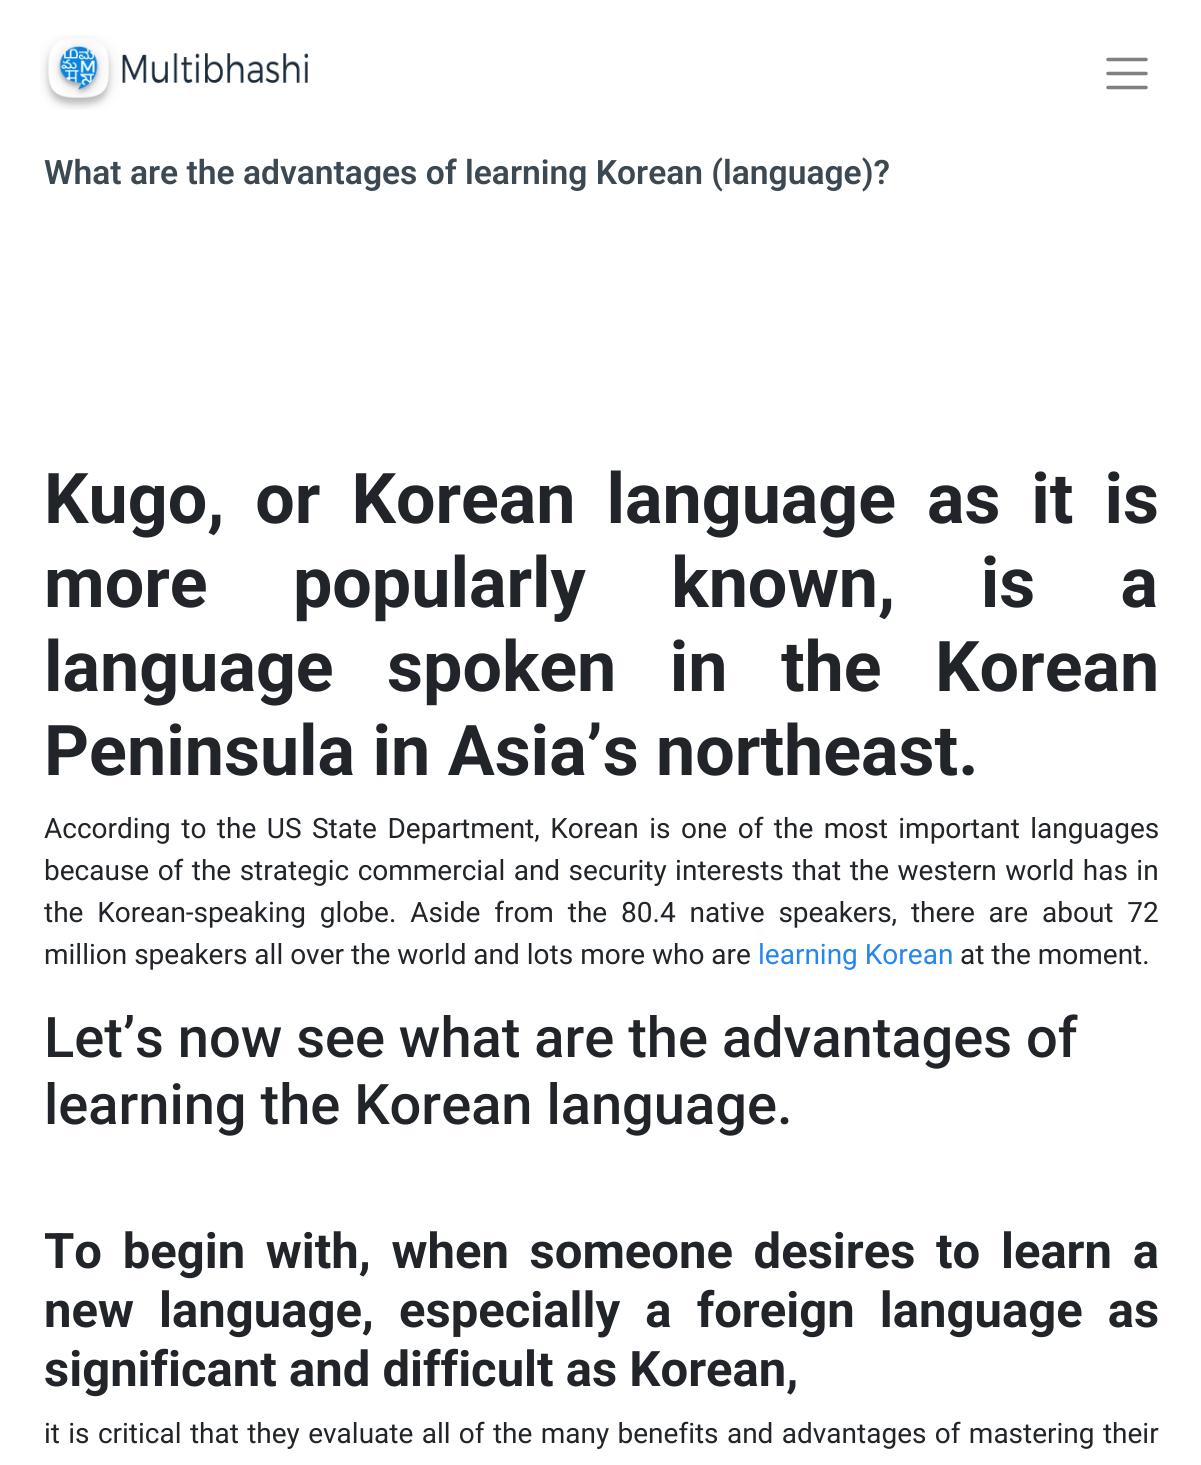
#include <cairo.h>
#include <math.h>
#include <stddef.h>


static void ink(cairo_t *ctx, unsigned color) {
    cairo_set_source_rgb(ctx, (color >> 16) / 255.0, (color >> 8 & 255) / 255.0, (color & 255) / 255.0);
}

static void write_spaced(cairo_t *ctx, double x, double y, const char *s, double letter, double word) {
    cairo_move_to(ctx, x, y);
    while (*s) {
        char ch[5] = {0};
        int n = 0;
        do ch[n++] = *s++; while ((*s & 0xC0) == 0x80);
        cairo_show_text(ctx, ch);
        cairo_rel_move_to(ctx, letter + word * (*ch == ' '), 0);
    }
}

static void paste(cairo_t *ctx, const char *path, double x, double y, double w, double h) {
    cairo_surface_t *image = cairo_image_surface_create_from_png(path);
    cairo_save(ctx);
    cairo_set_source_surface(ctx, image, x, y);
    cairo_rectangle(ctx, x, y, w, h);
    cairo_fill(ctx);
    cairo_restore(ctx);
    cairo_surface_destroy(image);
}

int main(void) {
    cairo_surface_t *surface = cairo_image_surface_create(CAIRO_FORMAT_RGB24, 1201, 1465);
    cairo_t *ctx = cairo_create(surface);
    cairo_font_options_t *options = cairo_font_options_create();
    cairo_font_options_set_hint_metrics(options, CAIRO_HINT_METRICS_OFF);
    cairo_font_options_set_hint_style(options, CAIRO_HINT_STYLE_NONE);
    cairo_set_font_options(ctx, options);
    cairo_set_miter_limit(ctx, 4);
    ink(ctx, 0xFFFFFF);
    cairo_paint(ctx);
    paste(ctx, "media/1.png", 40, 35, 268, 75);
    cairo_new_path(ctx);
    cairo_move_to(ctx, 1108, 59.5);
    cairo_line_to(ctx, 1146, 59.5);
    cairo_move_to(ctx, 1108, 73.5);
    cairo_line_to(ctx, 1146, 73.5);
    cairo_move_to(ctx, 1108, 87.5);
    cairo_line_to(ctx, 1146, 87.5);
    ink(ctx, 0x808080);
    cairo_set_line_width(ctx, 3.5);
    cairo_set_line_cap(ctx, CAIRO_LINE_CAP_ROUND);
    cairo_stroke(ctx);
    cairo_select_font_face(ctx, "Roboto SemiBold", CAIRO_FONT_SLANT_NORMAL, CAIRO_FONT_WEIGHT_NORMAL);
    cairo_set_font_size(ctx, 33.6);
    ink(ctx, 0x3C4852);
    cairo_move_to(ctx, 44, 184);
    cairo_show_text(ctx, "What are the advantages of learning Korean (language)?");
    cairo_select_font_face(ctx, "Roboto", CAIRO_FONT_SLANT_NORMAL, CAIRO_FONT_WEIGHT_BOLD);
    cairo_set_font_size(ctx, 70);
    ink(ctx, 0x212529);
    write_spaced(ctx, 44, 523, "Kugo, or Korean language as it is", 0, 13.5);
    write_spaced(ctx, 44, 607, "more popularly known, is a", 0, 68);
    write_spaced(ctx, 44, 691, "language spoken in the Korean", 0, 36);
    cairo_move_to(ctx, 44, 775);
    cairo_show_text(ctx, "Peninsula in Asia’s northeast.");
    cairo_select_font_face(ctx, "Roboto", CAIRO_FONT_SLANT_NORMAL, CAIRO_FONT_WEIGHT_NORMAL);
    cairo_set_font_size(ctx, 28);
    write_spaced(ctx, 44, 838, "According to the US State Department, Korean is one of the most important languages", 0, 3.5);
    write_spaced(ctx, 44, 880, "because of the strategic commercial and security interests that the western world has in", 0, 1.5);
    write_spaced(ctx, 44, 922, "the Korean-speaking globe. Aside from the 80.4 native speakers, there are about 72", 0, 6.9);
    cairo_move_to(ctx, 44, 964);
    cairo_show_text(ctx, "million speakers all over the world and lots more who are");
    ink(ctx, 0x2685EF);
    cairo_move_to(ctx, 758, 964);
    cairo_show_text(ctx, "learning Korean");
    ink(ctx, 0x212529);
    cairo_move_to(ctx, 960, 964);
    cairo_show_text(ctx, "at the moment.");
    cairo_select_font_face(ctx, "Roboto Medium", CAIRO_FONT_SLANT_NORMAL, CAIRO_FONT_WEIGHT_NORMAL);
    cairo_set_font_size(ctx, 56);
    cairo_move_to(ctx, 44, 1057);
    cairo_show_text(ctx, "Let’s now see what are the advantages of");
    cairo_move_to(ctx, 44, 1124);
    cairo_show_text(ctx, "learning the Korean language.");
    cairo_select_font_face(ctx, "Roboto", CAIRO_FONT_SLANT_NORMAL, CAIRO_FONT_WEIGHT_BOLD);
    cairo_set_font_size(ctx, 49);
    write_spaced(ctx, 44, 1268, "To begin with, when someone desires to learn a", 0, 8.5);
    write_spaced(ctx, 44, 1327, "new language, especially a foreign language as", 0, 13);
    cairo_move_to(ctx, 44, 1386);
    cairo_show_text(ctx, "significant and difficult as Korean,");
    cairo_select_font_face(ctx, "Roboto", CAIRO_FONT_SLANT_NORMAL, CAIRO_FONT_WEIGHT_NORMAL);
    cairo_set_font_size(ctx, 28);
    write_spaced(ctx, 44, 1443, "it is critical that they evaluate all of the many benefits and advantages of mastering their", 0, 1.4);
    cairo_surface_write_to_png(surface, "image.png");
    cairo_font_options_destroy(options);
    cairo_destroy(ctx);
    cairo_surface_destroy(surface);
    return 0;
}
